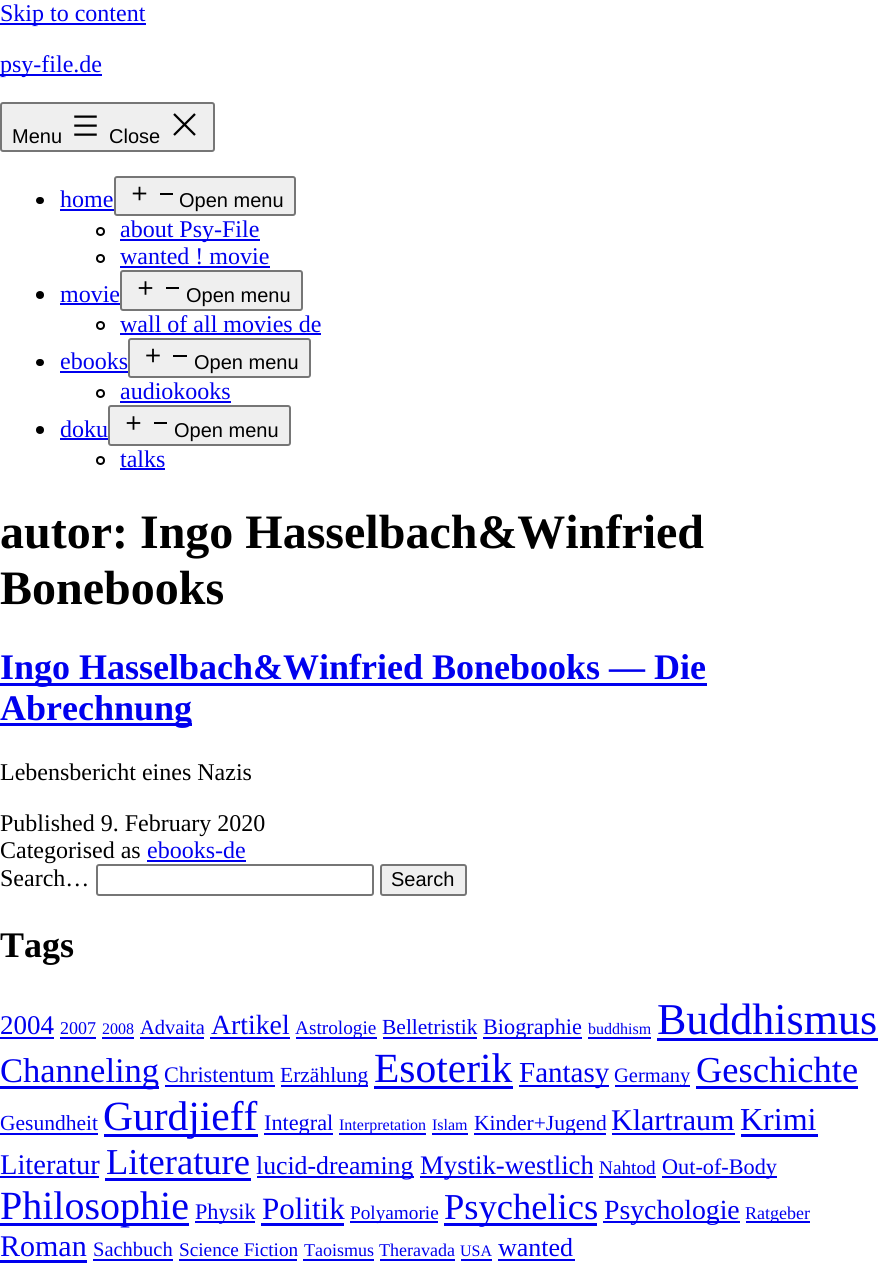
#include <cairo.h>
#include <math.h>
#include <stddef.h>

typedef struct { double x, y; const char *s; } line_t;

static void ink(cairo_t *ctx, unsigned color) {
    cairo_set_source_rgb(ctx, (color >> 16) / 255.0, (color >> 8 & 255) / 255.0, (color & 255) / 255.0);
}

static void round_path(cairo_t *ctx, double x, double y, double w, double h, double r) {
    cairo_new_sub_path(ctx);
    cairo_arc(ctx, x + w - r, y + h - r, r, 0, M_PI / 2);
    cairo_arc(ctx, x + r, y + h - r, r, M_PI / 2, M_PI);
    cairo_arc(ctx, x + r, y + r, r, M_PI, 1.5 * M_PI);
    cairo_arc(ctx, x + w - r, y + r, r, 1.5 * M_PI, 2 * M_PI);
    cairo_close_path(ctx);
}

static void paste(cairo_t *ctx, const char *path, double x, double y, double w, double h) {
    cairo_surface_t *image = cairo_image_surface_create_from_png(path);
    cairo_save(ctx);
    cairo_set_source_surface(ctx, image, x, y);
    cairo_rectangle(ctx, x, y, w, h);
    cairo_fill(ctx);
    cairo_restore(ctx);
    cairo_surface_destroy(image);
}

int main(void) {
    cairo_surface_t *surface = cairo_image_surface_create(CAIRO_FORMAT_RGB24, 886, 1264);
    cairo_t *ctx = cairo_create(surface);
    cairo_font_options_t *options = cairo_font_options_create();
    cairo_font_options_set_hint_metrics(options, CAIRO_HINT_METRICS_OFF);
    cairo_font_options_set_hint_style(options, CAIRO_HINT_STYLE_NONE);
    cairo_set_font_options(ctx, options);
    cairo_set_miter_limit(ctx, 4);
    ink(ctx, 0xFFFFFF);
    cairo_paint(ctx);
    ink(ctx, 0x0000EE);
    cairo_rectangle(ctx, 0, 23, 146, 2);
    cairo_fill(ctx);
    cairo_select_font_face(ctx, "Liberation Serif", CAIRO_FONT_SLANT_NORMAL, CAIRO_FONT_WEIGHT_NORMAL);
    cairo_set_font_size(ctx, 24);
    cairo_move_to(ctx, 0, 21);
    cairo_show_text(ctx, "Skip to content");
    cairo_rectangle(ctx, 0, 74, 102, 2);
    cairo_fill(ctx);
    cairo_move_to(ctx, 0, 72);
    cairo_show_text(ctx, "psy-file.de");
    ink(ctx, 0xEFEFEF);
    round_path(ctx, 1, 103, 213, 48, 2);
    cairo_fill_preserve(ctx);
    ink(ctx, 0x767676);
    cairo_stroke(ctx);
    cairo_select_font_face(ctx, "Liberation Sans", CAIRO_FONT_SLANT_NORMAL, CAIRO_FONT_WEIGHT_NORMAL);
    cairo_set_font_size(ctx, 20);
    ink(ctx, 0x000000);
    cairo_move_to(ctx, 12, 143);
    cairo_show_text(ctx, "Menu");
    paste(ctx, "media/1.png", 74, 115, 23, 21);
    cairo_move_to(ctx, 109, 143);
    cairo_show_text(ctx, "Close");
    paste(ctx, "media/2.png", 173, 113, 23, 23);
    round_path(ctx, 36, 197, 8, 7, 3.5);
    cairo_fill(ctx);
    cairo_select_font_face(ctx, "Liberation Serif", CAIRO_FONT_SLANT_NORMAL, CAIRO_FONT_WEIGHT_NORMAL);
    cairo_set_font_size(ctx, 24);
    ink(ctx, 0x0000EE);
    cairo_move_to(ctx, 60, 207);
    cairo_show_text(ctx, "home");
    cairo_rectangle(ctx, 60, 209, 54, 2);
    cairo_fill(ctx);
    ink(ctx, 0xEFEFEF);
    round_path(ctx, 115, 177, 180, 38, 2);
    cairo_fill_preserve(ctx);
    ink(ctx, 0x767676);
    cairo_stroke(ctx);
    paste(ctx, "media/3.png", 132, 186, 15, 15);
    ink(ctx, 0x000000);
    cairo_rectangle(ctx, 160, 193, 13, 2);
    cairo_fill(ctx);
    cairo_select_font_face(ctx, "Liberation Sans", CAIRO_FONT_SLANT_NORMAL, CAIRO_FONT_WEIGHT_NORMAL);
    cairo_set_font_size(ctx, 20);
    cairo_move_to(ctx, 179, 207);
    cairo_show_text(ctx, "Open menu");
    cairo_new_path(ctx);
    cairo_arc(ctx, 100.5, 231.5, 3.5, 0, 2 * M_PI);
    cairo_stroke(ctx);
    ink(ctx, 0x0000EE);
    cairo_rectangle(ctx, 120, 239, 140, 2);
    cairo_fill(ctx);
    cairo_select_font_face(ctx, "Liberation Serif", CAIRO_FONT_SLANT_NORMAL, CAIRO_FONT_WEIGHT_NORMAL);
    cairo_set_font_size(ctx, 24);
    cairo_move_to(ctx, 120, 237);
    cairo_show_text(ctx, "about Psy-File");
    cairo_new_path(ctx);
    cairo_arc(ctx, 100.5, 258.5, 3.5, 0, 2 * M_PI);
    ink(ctx, 0x000000);
    cairo_stroke(ctx);
    ink(ctx, 0x0000EE);
    cairo_move_to(ctx, 120, 264);
    cairo_show_text(ctx, "wanted ! movie");
    cairo_rectangle(ctx, 120, 266, 150, 2);
    cairo_fill(ctx);
    ink(ctx, 0x000000);
    cairo_arc(ctx, 40, 295, 4, 0, 2 * M_PI);
    cairo_fill(ctx);
    ink(ctx, 0x0000EE);
    cairo_move_to(ctx, 60, 302);
    cairo_show_text(ctx, "movie");
    cairo_rectangle(ctx, 60, 303, 60, 2);
    cairo_fill(ctx);
    ink(ctx, 0xEFEFEF);
    round_path(ctx, 121, 271, 181, 39, 2);
    cairo_fill_preserve(ctx);
    ink(ctx, 0x767676);
    cairo_stroke(ctx);
    paste(ctx, "media/4.png", 138, 281, 15, 14);
    ink(ctx, 0x000000);
    cairo_rectangle(ctx, 166, 287, 13, 2);
    cairo_fill(ctx);
    cairo_select_font_face(ctx, "Liberation Sans", CAIRO_FONT_SLANT_NORMAL, CAIRO_FONT_WEIGHT_NORMAL);
    cairo_set_font_size(ctx, 20);
    cairo_move_to(ctx, 186, 302);
    cairo_show_text(ctx, "Open menu");
    cairo_new_path(ctx);
    cairo_arc(ctx, 100.5, 325.5, 3.5, 0, 2 * M_PI);
    cairo_stroke(ctx);
    cairo_select_font_face(ctx, "Liberation Serif", CAIRO_FONT_SLANT_NORMAL, CAIRO_FONT_WEIGHT_NORMAL);
    cairo_set_font_size(ctx, 24);
    ink(ctx, 0x0000EE);
    cairo_move_to(ctx, 120, 332);
    cairo_show_text(ctx, "wall of all movies de");
    cairo_rectangle(ctx, 120, 333, 201, 2);
    cairo_fill(ctx);
    ink(ctx, 0x000000);
    round_path(ctx, 36, 359, 8, 7, 3.5);
    cairo_fill(ctx);
    ink(ctx, 0x0000EE);
    cairo_move_to(ctx, 60, 369);
    cairo_show_text(ctx, "ebooks");
    cairo_rectangle(ctx, 60, 371, 68, 2);
    cairo_fill(ctx);
    ink(ctx, 0xEFEFEF);
    round_path(ctx, 129, 339, 181, 38, 2);
    cairo_fill_preserve(ctx);
    ink(ctx, 0x767676);
    cairo_stroke(ctx);
    paste(ctx, "media/5.png", 146, 348, 14, 15);
    ink(ctx, 0x000000);
    cairo_rectangle(ctx, 173, 355, 14, 2);
    cairo_fill(ctx);
    cairo_select_font_face(ctx, "Liberation Sans", CAIRO_FONT_SLANT_NORMAL, CAIRO_FONT_WEIGHT_NORMAL);
    cairo_set_font_size(ctx, 20);
    cairo_move_to(ctx, 194, 369);
    cairo_show_text(ctx, "Open menu");
    cairo_new_path(ctx);
    cairo_arc(ctx, 100.5, 393.5, 3.5, 0, 2 * M_PI);
    cairo_stroke(ctx);
    cairo_select_font_face(ctx, "Liberation Serif", CAIRO_FONT_SLANT_NORMAL, CAIRO_FONT_WEIGHT_NORMAL);
    cairo_set_font_size(ctx, 24);
    ink(ctx, 0x0000EE);
    cairo_move_to(ctx, 120, 399);
    cairo_show_text(ctx, "audiokooks");
    cairo_rectangle(ctx, 120, 401, 111, 2);
    cairo_fill(ctx);
    ink(ctx, 0x000000);
    cairo_arc(ctx, 40, 430, 4, 0, 2 * M_PI);
    cairo_fill(ctx);
    ink(ctx, 0x0000EE);
    cairo_move_to(ctx, 60, 437);
    cairo_show_text(ctx, "doku");
    cairo_rectangle(ctx, 60, 438, 48, 2);
    cairo_fill(ctx);
    ink(ctx, 0xEFEFEF);
    round_path(ctx, 109, 406, 181, 39, 2);
    cairo_fill_preserve(ctx);
    ink(ctx, 0x767676);
    cairo_stroke(ctx);
    paste(ctx, "media/4.png", 126, 416, 15, 14);
    ink(ctx, 0x000000);
    cairo_rectangle(ctx, 154, 422, 13, 2);
    cairo_fill(ctx);
    cairo_select_font_face(ctx, "Liberation Sans", CAIRO_FONT_SLANT_NORMAL, CAIRO_FONT_WEIGHT_NORMAL);
    cairo_set_font_size(ctx, 20);
    cairo_move_to(ctx, 174, 437);
    cairo_show_text(ctx, "Open menu");
    cairo_new_path(ctx);
    cairo_arc(ctx, 100.5, 460.5, 3.5, 0, 2 * M_PI);
    cairo_stroke(ctx);
    cairo_select_font_face(ctx, "Liberation Serif", CAIRO_FONT_SLANT_NORMAL, CAIRO_FONT_WEIGHT_NORMAL);
    cairo_set_font_size(ctx, 24);
    ink(ctx, 0x0000EE);
    cairo_move_to(ctx, 120, 467);
    cairo_show_text(ctx, "talks");
    cairo_rectangle(ctx, 120, 468, 45, 2);
    cairo_fill(ctx);
    cairo_select_font_face(ctx, "Liberation Serif", CAIRO_FONT_SLANT_NORMAL, CAIRO_FONT_WEIGHT_BOLD);
    cairo_set_font_size(ctx, 48);
    ink(ctx, 0x000000);
    cairo_move_to(ctx, 0, 548);
    cairo_show_text(ctx, "autor: Ingo Hasselbach&Winfried");
    cairo_move_to(ctx, 0, 604);
    cairo_show_text(ctx, "Bonebooks");
    ink(ctx, 0x0000EE);
    cairo_rectangle(ctx, 0, 683, 707, 3);
    cairo_fill(ctx);
    cairo_set_font_size(ctx, 36);
    cairo_move_to(ctx, 0, 679);
    cairo_show_text(ctx, "Ingo Hasselbach&Winfried Bonebooks — Die");
    cairo_rectangle(ctx, 0, 723, 192, 3);
    cairo_fill(ctx);
    cairo_move_to(ctx, 0, 720);
    cairo_show_text(ctx, "Abrechnung");
    cairo_select_font_face(ctx, "Liberation Serif", CAIRO_FONT_SLANT_NORMAL, CAIRO_FONT_WEIGHT_NORMAL);
    cairo_set_font_size(ctx, 24);
    ink(ctx, 0x000000);
    {
        static const line_t items[] = {
            {0, 780, "Lebensbericht eines Nazis"},
            {0, 831, "Published 9. February 2020"},
            {0, 858, "Categorised as"},
        };
        for (size_t i = 0; i < sizeof items / sizeof *items; i++) {
            cairo_move_to(ctx, items[i].x, items[i].y);
            cairo_show_text(ctx, items[i].s);
        }
    }
    ink(ctx, 0x0000EE);
    cairo_move_to(ctx, 147, 858);
    cairo_show_text(ctx, "ebooks-de");
    cairo_rectangle(ctx, 147, 860, 99, 2);
    cairo_fill(ctx);
    ink(ctx, 0x000000);
    cairo_move_to(ctx, 0, 886);
    cairo_show_text(ctx, "Search…");
    round_path(ctx, 97, 865, 276, 30, 2);
    ink(ctx, 0x767676);
    cairo_stroke(ctx);
    ink(ctx, 0xEFEFEF);
    round_path(ctx, 381, 865, 85, 30, 2);
    cairo_fill_preserve(ctx);
    ink(ctx, 0x767676);
    cairo_stroke(ctx);
    cairo_select_font_face(ctx, "Liberation Sans", CAIRO_FONT_SLANT_NORMAL, CAIRO_FONT_WEIGHT_NORMAL);
    cairo_set_font_size(ctx, 20);
    ink(ctx, 0x000000);
    cairo_move_to(ctx, 391, 886);
    cairo_show_text(ctx, "Search");
    cairo_select_font_face(ctx, "Liberation Serif", CAIRO_FONT_SLANT_NORMAL, CAIRO_FONT_WEIGHT_BOLD);
    cairo_set_font_size(ctx, 36);
    cairo_move_to(ctx, 0, 957);
    cairo_show_text(ctx, "Tags");
    cairo_select_font_face(ctx, "Liberation Serif", CAIRO_FONT_SLANT_NORMAL, CAIRO_FONT_WEIGHT_NORMAL);
    cairo_set_font_size(ctx, 27);
    ink(ctx, 0x0000EE);
    cairo_move_to(ctx, 0, 1034);
    cairo_show_text(ctx, "2004");
    cairo_rectangle(ctx, 0, 1037, 54, 2);
    cairo_fill(ctx);
    cairo_set_font_size(ctx, 18);
    cairo_move_to(ctx, 60, 1034);
    cairo_show_text(ctx, "2007");
    cairo_rectangle(ctx, 60, 1037, 36, 2);
    cairo_fill(ctx);
    cairo_set_font_size(ctx, 16);
    cairo_move_to(ctx, 102, 1034);
    cairo_show_text(ctx, "2008");
    cairo_rectangle(ctx, 102, 1037, 32, 2);
    cairo_fill(ctx);
    cairo_set_font_size(ctx, 20.5);
    cairo_move_to(ctx, 140, 1034);
    cairo_show_text(ctx, "Advaita");
    cairo_rectangle(ctx, 140, 1037, 64, 2);
    cairo_fill(ctx);
    cairo_set_font_size(ctx, 27.75);
    cairo_move_to(ctx, 211, 1034);
    cairo_show_text(ctx, "Artikel");
    cairo_rectangle(ctx, 210, 1037, 80, 2);
    cairo_fill(ctx);
    cairo_rectangle(ctx, 296, 1037, 81, 2);
    cairo_fill(ctx);
    cairo_set_font_size(ctx, 19.25);
    cairo_move_to(ctx, 295, 1034);
    cairo_show_text(ctx, "Astrologie");
    cairo_set_font_size(ctx, 21.5);
    cairo_move_to(ctx, 382, 1034);
    cairo_show_text(ctx, "Belletristik");
    cairo_rectangle(ctx, 383, 1037, 94, 2);
    cairo_fill(ctx);
    cairo_rectangle(ctx, 483, 1037, 99, 2);
    cairo_fill(ctx);
    cairo_set_font_size(ctx, 22.25);
    cairo_move_to(ctx, 483, 1034);
    cairo_show_text(ctx, "Biographie");
    cairo_set_font_size(ctx, 16);
    cairo_move_to(ctx, 588, 1034);
    cairo_show_text(ctx, "buddhism");
    cairo_rectangle(ctx, 588, 1037, 63, 2);
    cairo_fill(ctx);
    cairo_set_font_size(ctx, 44);
    cairo_move_to(ctx, 657, 1034);
    cairo_show_text(ctx, "Buddhismus");
    cairo_rectangle(ctx, 657, 1038, 221, 3);
    cairo_fill(ctx);
    cairo_rectangle(ctx, 0, 1086, 159, 3);
    cairo_fill(ctx);
    cairo_set_font_size(ctx, 34.5);
    cairo_move_to(ctx, 0, 1082);
    cairo_show_text(ctx, "Channeling");
    cairo_set_font_size(ctx, 22.25);
    cairo_move_to(ctx, 164, 1082);
    cairo_show_text(ctx, "Christentum");
    cairo_rectangle(ctx, 165, 1085, 110, 2);
    cairo_fill(ctx);
    cairo_rectangle(ctx, 281, 1085, 87, 2);
    cairo_fill(ctx);
    cairo_set_font_size(ctx, 21.5);
    cairo_move_to(ctx, 280, 1082);
    cairo_show_text(ctx, "Erzählung");
    cairo_set_font_size(ctx, 41.5);
    cairo_move_to(ctx, 374, 1082);
    cairo_show_text(ctx, "Esoterik");
    cairo_rectangle(ctx, 374, 1086, 139, 3);
    cairo_fill(ctx);
    cairo_rectangle(ctx, 519, 1085, 90, 2);
    cairo_fill(ctx);
    cairo_set_font_size(ctx, 29);
    cairo_move_to(ctx, 519, 1082);
    cairo_show_text(ctx, "Fantasy");
    cairo_rectangle(ctx, 615, 1085, 75, 2);
    cairo_fill(ctx);
    cairo_set_font_size(ctx, 20.5);
    cairo_move_to(ctx, 614, 1082);
    cairo_show_text(ctx, "Germany");
    cairo_set_font_size(ctx, 36.5);
    cairo_move_to(ctx, 696, 1082);
    cairo_show_text(ctx, "Geschichte");
    cairo_rectangle(ctx, 696, 1086, 162, 3);
    cairo_fill(ctx);
    cairo_set_font_size(ctx, 21.5);
    cairo_move_to(ctx, 0, 1130);
    cairo_show_text(ctx, "Gesundheit");
    cairo_rectangle(ctx, 0, 1133, 98, 2);
    cairo_fill(ctx);
    cairo_rectangle(ctx, 104, 1134, 154, 3);
    cairo_fill(ctx);
    cairo_set_font_size(ctx, 41.5);
    cairo_move_to(ctx, 103, 1130);
    cairo_show_text(ctx, "Gurdjieff");
    cairo_rectangle(ctx, 264, 1133, 69, 2);
    cairo_fill(ctx);
    cairo_set_font_size(ctx, 22.25);
    cairo_move_to(ctx, 264, 1130);
    cairo_show_text(ctx, "Integral");
    cairo_rectangle(ctx, 339, 1133, 87, 2);
    cairo_fill(ctx);
    cairo_set_font_size(ctx, 16);
    cairo_move_to(ctx, 339, 1130);
    cairo_show_text(ctx, "Interpretation");
    cairo_move_to(ctx, 432, 1130);
    cairo_show_text(ctx, "Islam");
    cairo_rectangle(ctx, 432, 1133, 36, 2);
    cairo_fill(ctx);
    cairo_rectangle(ctx, 474, 1133, 132, 2);
    cairo_fill(ctx);
    cairo_set_font_size(ctx, 21.5);
    cairo_move_to(ctx, 474, 1130);
    cairo_show_text(ctx, "Kinder+Jugend");
    cairo_set_font_size(ctx, 30);
    cairo_move_to(ctx, 611, 1130);
    cairo_show_text(ctx, "Klartraum");
    cairo_rectangle(ctx, 612, 1133, 123, 2);
    cairo_fill(ctx);
    cairo_set_font_size(ctx, 32);
    cairo_move_to(ctx, 740, 1130);
    cairo_show_text(ctx, "Krimi");
    cairo_rectangle(ctx, 741, 1134, 77, 3);
    cairo_fill(ctx);
    cairo_set_font_size(ctx, 28.5);
    cairo_move_to(ctx, 0, 1174);
    cairo_show_text(ctx, "Literatur");
    cairo_rectangle(ctx, 0, 1176, 99, 2);
    cairo_fill(ctx);
    cairo_set_font_size(ctx, 36.5);
    cairo_move_to(ctx, 106, 1174);
    cairo_show_text(ctx, "Literature");
    cairo_rectangle(ctx, 105, 1178, 146, 3);
    cairo_fill(ctx);
    cairo_rectangle(ctx, 257, 1176, 157, 2);
    cairo_fill(ctx);
    cairo_set_font_size(ctx, 25.75);
    cairo_move_to(ctx, 256, 1174);
    cairo_show_text(ctx, "lucid-dreaming");
    cairo_rectangle(ctx, 420, 1176, 173, 2);
    cairo_fill(ctx);
    cairo_set_font_size(ctx, 26.75);
    cairo_move_to(ctx, 420, 1174);
    cairo_show_text(ctx, "Mystik-westlich");
    cairo_set_font_size(ctx, 19.25);
    cairo_move_to(ctx, 599, 1174);
    cairo_show_text(ctx, "Nahtod");
    cairo_rectangle(ctx, 599, 1176, 57, 2);
    cairo_fill(ctx);
    cairo_rectangle(ctx, 662, 1176, 115, 2);
    cairo_fill(ctx);
    cairo_set_font_size(ctx, 22.25);
    cairo_move_to(ctx, 662, 1174);
    cairo_show_text(ctx, "Out-of-Body");
    cairo_rectangle(ctx, 0, 1223, 189, 3);
    cairo_fill(ctx);
    cairo_set_font_size(ctx, 40);
    cairo_move_to(ctx, 0, 1219);
    cairo_show_text(ctx, "Philosophie");
    cairo_rectangle(ctx, 195, 1221, 60, 2);
    cairo_fill(ctx);
    cairo_set_font_size(ctx, 22.25);
    cairo_move_to(ctx, 195, 1219);
    cairo_show_text(ctx, "Physik");
    cairo_set_font_size(ctx, 31);
    cairo_move_to(ctx, 262, 1219);
    cairo_show_text(ctx, "Politik");
    cairo_rectangle(ctx, 261, 1223, 83, 3);
    cairo_fill(ctx);
    cairo_rectangle(ctx, 350, 1221, 88, 2);
    cairo_fill(ctx);
    cairo_set_font_size(ctx, 19.25);
    cairo_move_to(ctx, 350, 1219);
    cairo_show_text(ctx, "Polyamorie");
    cairo_rectangle(ctx, 444, 1223, 153, 3);
    cairo_fill(ctx);
    cairo_set_font_size(ctx, 36.5);
    cairo_move_to(ctx, 444, 1219);
    cairo_show_text(ctx, "Psychelics");
    cairo_rectangle(ctx, 603, 1221, 137, 2);
    cairo_fill(ctx);
    cairo_set_font_size(ctx, 27.75);
    cairo_move_to(ctx, 604, 1219);
    cairo_show_text(ctx, "Psychologie");
    cairo_rectangle(ctx, 746, 1221, 64, 2);
    cairo_fill(ctx);
    cairo_set_font_size(ctx, 18);
    cairo_move_to(ctx, 745, 1219);
    cairo_show_text(ctx, "Ratgeber");
    cairo_set_font_size(ctx, 30);
    cairo_move_to(ctx, 0, 1256);
    cairo_show_text(ctx, "Roman");
    cairo_rectangle(ctx, 0, 1260, 87, 3);
    cairo_fill(ctx);
    cairo_set_font_size(ctx, 20.5);
    cairo_move_to(ctx, 93, 1256);
    cairo_show_text(ctx, "Sachbuch");
    cairo_rectangle(ctx, 93, 1259, 80, 2);
    cairo_fill(ctx);
    cairo_set_font_size(ctx, 19.25);
    cairo_move_to(ctx, 179, 1256);
    cairo_show_text(ctx, "Science Fiction");
    cairo_rectangle(ctx, 179, 1259, 118, 2);
    cairo_fill(ctx);
    cairo_set_font_size(ctx, 18);
    cairo_move_to(ctx, 304, 1256);
    cairo_show_text(ctx, "Taoismus");
    cairo_rectangle(ctx, 303, 1259, 71, 2);
    cairo_fill(ctx);
    cairo_move_to(ctx, 379, 1256);
    cairo_show_text(ctx, "Theravada");
    cairo_rectangle(ctx, 380, 1259, 75, 2);
    cairo_fill(ctx);
    cairo_set_font_size(ctx, 16);
    cairo_move_to(ctx, 460, 1256);
    cairo_show_text(ctx, "USA");
    cairo_rectangle(ctx, 461, 1259, 31, 2);
    cairo_fill(ctx);
    cairo_set_font_size(ctx, 26);
    cairo_move_to(ctx, 498, 1256);
    cairo_show_text(ctx, "wanted");
    cairo_rectangle(ctx, 498, 1259, 77, 2);
    cairo_fill(ctx);
    cairo_surface_write_to_png(surface, "image.png");
    cairo_font_options_destroy(options);
    cairo_destroy(ctx);
    cairo_surface_destroy(surface);
    return 0;
}
